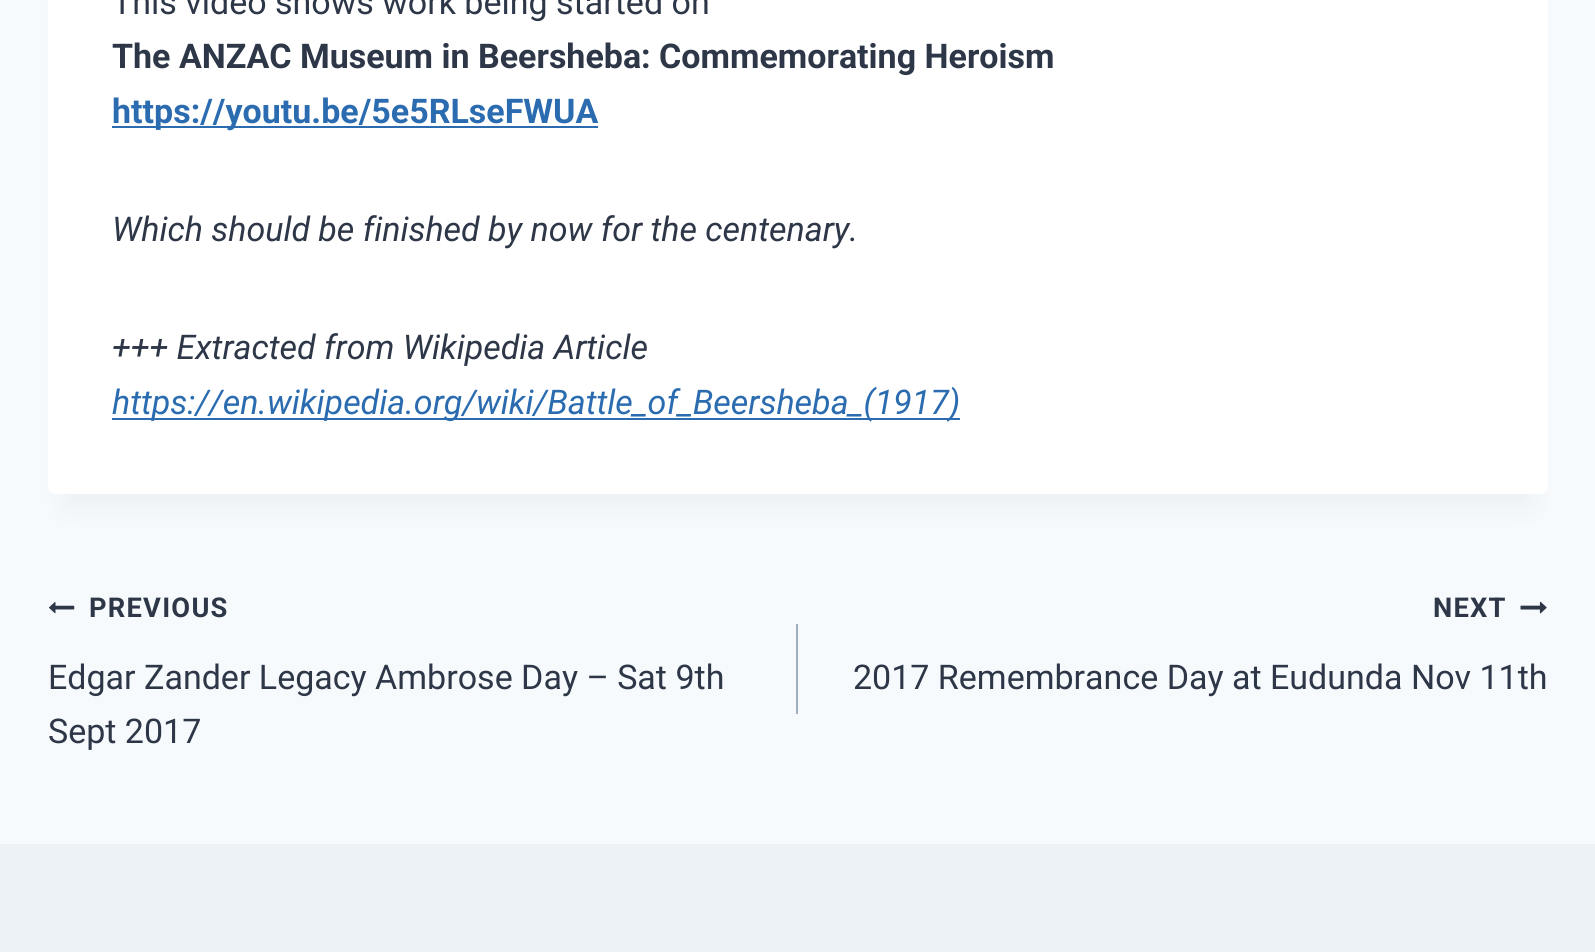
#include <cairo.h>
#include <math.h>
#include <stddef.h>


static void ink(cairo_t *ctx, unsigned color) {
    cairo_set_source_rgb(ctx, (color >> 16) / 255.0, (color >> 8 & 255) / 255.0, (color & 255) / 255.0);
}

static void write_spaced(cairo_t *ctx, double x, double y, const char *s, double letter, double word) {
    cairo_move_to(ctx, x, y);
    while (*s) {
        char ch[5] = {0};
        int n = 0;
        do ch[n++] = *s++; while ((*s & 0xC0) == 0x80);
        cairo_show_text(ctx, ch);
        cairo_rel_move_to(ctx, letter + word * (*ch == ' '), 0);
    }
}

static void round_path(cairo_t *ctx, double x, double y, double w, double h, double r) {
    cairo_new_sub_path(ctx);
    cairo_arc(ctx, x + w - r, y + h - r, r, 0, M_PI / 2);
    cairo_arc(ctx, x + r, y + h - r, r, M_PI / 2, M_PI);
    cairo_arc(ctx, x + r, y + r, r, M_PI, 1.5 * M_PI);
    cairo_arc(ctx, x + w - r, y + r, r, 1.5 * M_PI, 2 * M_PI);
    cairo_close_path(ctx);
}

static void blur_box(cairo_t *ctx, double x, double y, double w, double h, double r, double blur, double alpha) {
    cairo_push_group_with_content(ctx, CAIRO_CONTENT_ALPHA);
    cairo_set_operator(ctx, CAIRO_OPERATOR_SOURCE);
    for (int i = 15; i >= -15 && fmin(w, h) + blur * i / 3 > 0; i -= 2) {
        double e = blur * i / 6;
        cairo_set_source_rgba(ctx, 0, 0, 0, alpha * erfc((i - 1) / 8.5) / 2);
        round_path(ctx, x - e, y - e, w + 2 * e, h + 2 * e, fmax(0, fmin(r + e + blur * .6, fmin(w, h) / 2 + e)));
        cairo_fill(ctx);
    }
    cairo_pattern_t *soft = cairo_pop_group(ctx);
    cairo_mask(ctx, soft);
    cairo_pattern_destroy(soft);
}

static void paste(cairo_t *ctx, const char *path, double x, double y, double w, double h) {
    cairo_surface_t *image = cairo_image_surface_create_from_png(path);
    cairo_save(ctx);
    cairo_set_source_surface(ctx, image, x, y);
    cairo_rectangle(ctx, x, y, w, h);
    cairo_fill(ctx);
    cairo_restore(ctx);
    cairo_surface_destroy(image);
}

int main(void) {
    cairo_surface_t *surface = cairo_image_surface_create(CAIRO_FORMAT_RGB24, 1595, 952);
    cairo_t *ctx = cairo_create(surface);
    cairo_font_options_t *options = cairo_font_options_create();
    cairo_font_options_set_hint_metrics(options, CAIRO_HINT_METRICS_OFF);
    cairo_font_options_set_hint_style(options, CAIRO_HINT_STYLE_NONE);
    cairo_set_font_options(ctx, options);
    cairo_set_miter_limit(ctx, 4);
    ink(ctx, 0xF7FAFC);
    cairo_paint(ctx);
    ink(ctx, 0x000000);
    blur_box(ctx, 68, -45, 1460, 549, 0, 15, 0.05);
    ink(ctx, 0xFFFFFF);
    round_path(ctx, 48, -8, 1500, 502, 8);
    cairo_fill(ctx);
    cairo_select_font_face(ctx, "Roboto", CAIRO_FONT_SLANT_NORMAL, CAIRO_FONT_WEIGHT_NORMAL);
    cairo_set_font_size(ctx, 34);
    ink(ctx, 0x2D3748);
    cairo_move_to(ctx, 112, 14);
    cairo_show_text(ctx, "This video shows work being started on");
    cairo_select_font_face(ctx, "Roboto", CAIRO_FONT_SLANT_NORMAL, CAIRO_FONT_WEIGHT_BOLD);
    cairo_move_to(ctx, 112, 68);
    cairo_show_text(ctx, "The ANZAC Museum in Beersheba: Commemorating Heroism");
    ink(ctx, 0x2B6CB0);
    cairo_rectangle(ctx, 112, 126, 486, 2);
    cairo_fill(ctx);
    cairo_move_to(ctx, 112, 123);
    cairo_show_text(ctx, "https://youtu.be/5e5RLseFWUA");
    cairo_select_font_face(ctx, "Roboto", CAIRO_FONT_SLANT_ITALIC, CAIRO_FONT_WEIGHT_NORMAL);
    ink(ctx, 0x2D3748);
    cairo_move_to(ctx, 112, 241);
    cairo_show_text(ctx, "Which should be finished by now for the centenary.");
    cairo_move_to(ctx, 112, 359);
    cairo_show_text(ctx, "+++ Extracted from Wikipedia Article");
    ink(ctx, 0x2B6CB0);
    cairo_rectangle(ctx, 112, 418, 848, 2);
    cairo_fill(ctx);
    cairo_move_to(ctx, 112, 414);
    cairo_show_text(ctx, "https://en.wikipedia.org/wiki/Battle_of_Beersheba_(1917)");
    paste(ctx, "media/1.png", 49, 602, 26, 12);
    cairo_select_font_face(ctx, "Roboto", CAIRO_FONT_SLANT_NORMAL, CAIRO_FONT_WEIGHT_BOLD);
    cairo_set_font_size(ctx, 27.25);
    ink(ctx, 0x2D3748);
    write_spaced(ctx, 89, 617, "PREVIOUS", 1.25, 0);
    cairo_select_font_face(ctx, "Roboto", CAIRO_FONT_SLANT_NORMAL, CAIRO_FONT_WEIGHT_NORMAL);
    cairo_set_font_size(ctx, 34);
    cairo_move_to(ctx, 48, 689);
    cairo_show_text(ctx, "Edgar Zander Legacy Ambrose Day – Sat 9th");
    cairo_move_to(ctx, 48, 743);
    cairo_show_text(ctx, "Sept 2017");
    ink(ctx, 0xA0AEC0);
    cairo_rectangle(ctx, 796, 624, 2, 90);
    cairo_fill(ctx);
    cairo_select_font_face(ctx, "Roboto", CAIRO_FONT_SLANT_NORMAL, CAIRO_FONT_WEIGHT_BOLD);
    cairo_set_font_size(ctx, 27.25);
    ink(ctx, 0x2D3748);
    write_spaced(ctx, 1433, 617, "NEXT", 1.25, 0);
    paste(ctx, "media/2.png", 1520, 601, 27, 13);
    cairo_select_font_face(ctx, "Roboto", CAIRO_FONT_SLANT_NORMAL, CAIRO_FONT_WEIGHT_NORMAL);
    cairo_set_font_size(ctx, 34);
    cairo_move_to(ctx, 853, 689);
    cairo_show_text(ctx, "2017 Remembrance Day at Eudunda Nov 11th");
    ink(ctx, 0xEDF2F7);
    cairo_rectangle(ctx, 0, 844, 1595, 108);
    cairo_fill(ctx);
    cairo_surface_write_to_png(surface, "image.png");
    cairo_font_options_destroy(options);
    cairo_destroy(ctx);
    cairo_surface_destroy(surface);
    return 0;
}
